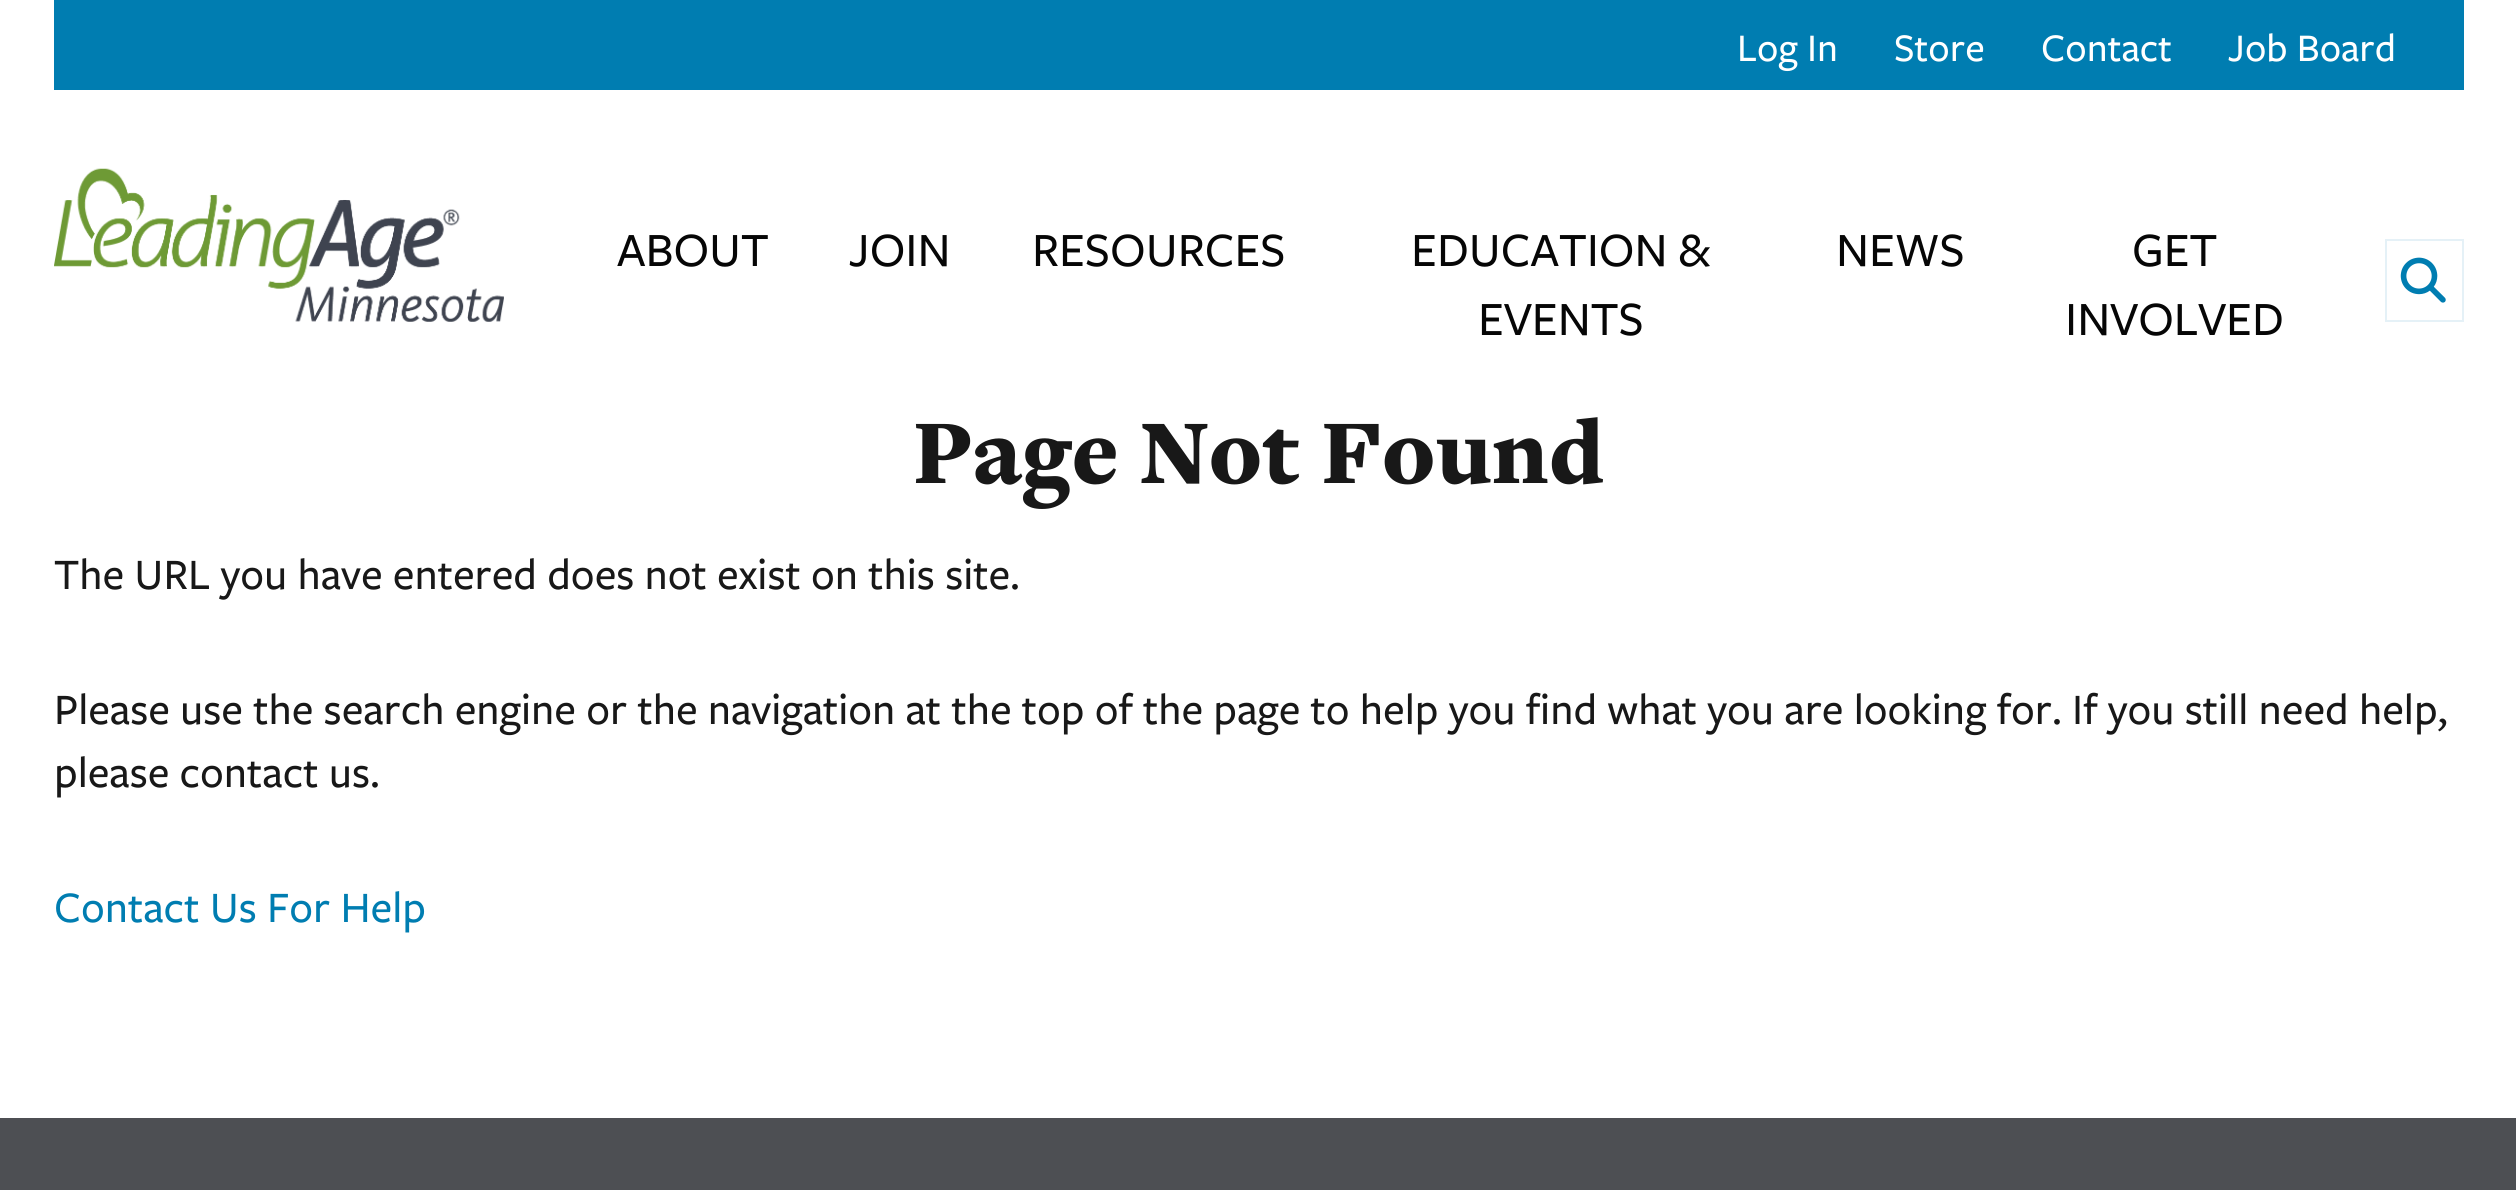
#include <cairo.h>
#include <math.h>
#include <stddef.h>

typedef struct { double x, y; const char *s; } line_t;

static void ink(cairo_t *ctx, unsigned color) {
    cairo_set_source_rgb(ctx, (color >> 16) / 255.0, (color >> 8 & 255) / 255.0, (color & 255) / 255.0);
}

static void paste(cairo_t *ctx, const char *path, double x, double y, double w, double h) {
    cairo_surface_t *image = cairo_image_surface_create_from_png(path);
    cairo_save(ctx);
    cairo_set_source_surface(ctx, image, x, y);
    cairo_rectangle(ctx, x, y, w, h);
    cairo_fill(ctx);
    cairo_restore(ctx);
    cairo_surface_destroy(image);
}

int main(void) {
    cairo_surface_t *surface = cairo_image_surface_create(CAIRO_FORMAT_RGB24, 2516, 1190);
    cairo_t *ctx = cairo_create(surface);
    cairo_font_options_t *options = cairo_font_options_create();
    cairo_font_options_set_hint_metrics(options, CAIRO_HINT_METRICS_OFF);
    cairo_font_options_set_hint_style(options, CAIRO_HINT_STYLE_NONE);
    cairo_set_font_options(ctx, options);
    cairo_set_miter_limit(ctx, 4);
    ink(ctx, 0xFFFFFF);
    cairo_paint(ctx);
    ink(ctx, 0x007DB1);
    cairo_rectangle(ctx, 54, 0, 2410, 90);
    cairo_fill(ctx);
    cairo_select_font_face(ctx, "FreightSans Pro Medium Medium", CAIRO_FONT_SLANT_NORMAL, CAIRO_FONT_WEIGHT_NORMAL);
    cairo_set_font_size(ctx, 40.5);
    ink(ctx, 0xFFFFFF);
    {
        static const line_t items[] = {
            {1737, 61, "Log In"},
            {1894, 61, "Store"},
            {2041, 61, "Contact"},
            {2228, 61, "Job Board"},
        };
        for (size_t i = 0; i < sizeof items / sizeof *items; i++) {
            cairo_move_to(ctx, items[i].x, items[i].y);
            cairo_show_text(ctx, items[i].s);
        }
    }
    paste(ctx, "media/1.png", 54, 168, 450, 154);
    cairo_set_font_size(ctx, 49.5);
    ink(ctx, 0x060606);
    {
        static const line_t items[] = {
            {617, 266, "ABOUT"},
            {849, 266, "JOIN"},
            {1032, 266, "RESOURCES"},
            {1411, 266, "EDUCATION &"},
            {1478, 335, "EVENTS"},
            {1836, 266, "NEWS"},
            {2132, 266, "GET"},
            {2065, 335, "INVOLVED"},
        };
        for (size_t i = 0; i < sizeof items / sizeof *items; i++) {
            cairo_move_to(ctx, items[i].x, items[i].y);
            cairo_show_text(ctx, items[i].s);
        }
    }
    cairo_rectangle(ctx, 2386, 240, 77, 81);
    ink(ctx, 0xE5F1F7);
    cairo_stroke(ctx);
    paste(ctx, "media/2.png", 2400, 257, 46, 46);
    cairo_select_font_face(ctx, "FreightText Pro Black", CAIRO_FONT_SLANT_NORMAL, CAIRO_FONT_WEIGHT_NORMAL);
    cairo_set_font_size(ctx, 94.5);
    ink(ctx, 0x181818);
    cairo_move_to(ctx, 913, 483);
    cairo_show_text(ctx, "Page Not Found");
    cairo_select_font_face(ctx, "FreightSans Pro Medium Medium", CAIRO_FONT_SLANT_NORMAL, CAIRO_FONT_WEIGHT_NORMAL);
    cairo_set_font_size(ctx, 45);
    {
        static const line_t items[] = {
            {54, 589, "The URL you have entered does not exist on this site."},
            {54, 724, "Please use the search engine or the navigation at the top of the page to help you find what you are looking for. If you still need help,"},
            {54, 787, "please contact us."},
        };
        for (size_t i = 0; i < sizeof items / sizeof *items; i++) {
            cairo_move_to(ctx, items[i].x, items[i].y);
            cairo_show_text(ctx, items[i].s);
        }
    }
    ink(ctx, 0x007DB1);
    cairo_move_to(ctx, 54, 922);
    cairo_show_text(ctx, "Contact Us For Help");
    ink(ctx, 0x4D4F53);
    cairo_rectangle(ctx, 0, 1118, 2516, 72);
    cairo_fill(ctx);
    cairo_surface_write_to_png(surface, "image.png");
    cairo_font_options_destroy(options);
    cairo_destroy(ctx);
    cairo_surface_destroy(surface);
    return 0;
}
